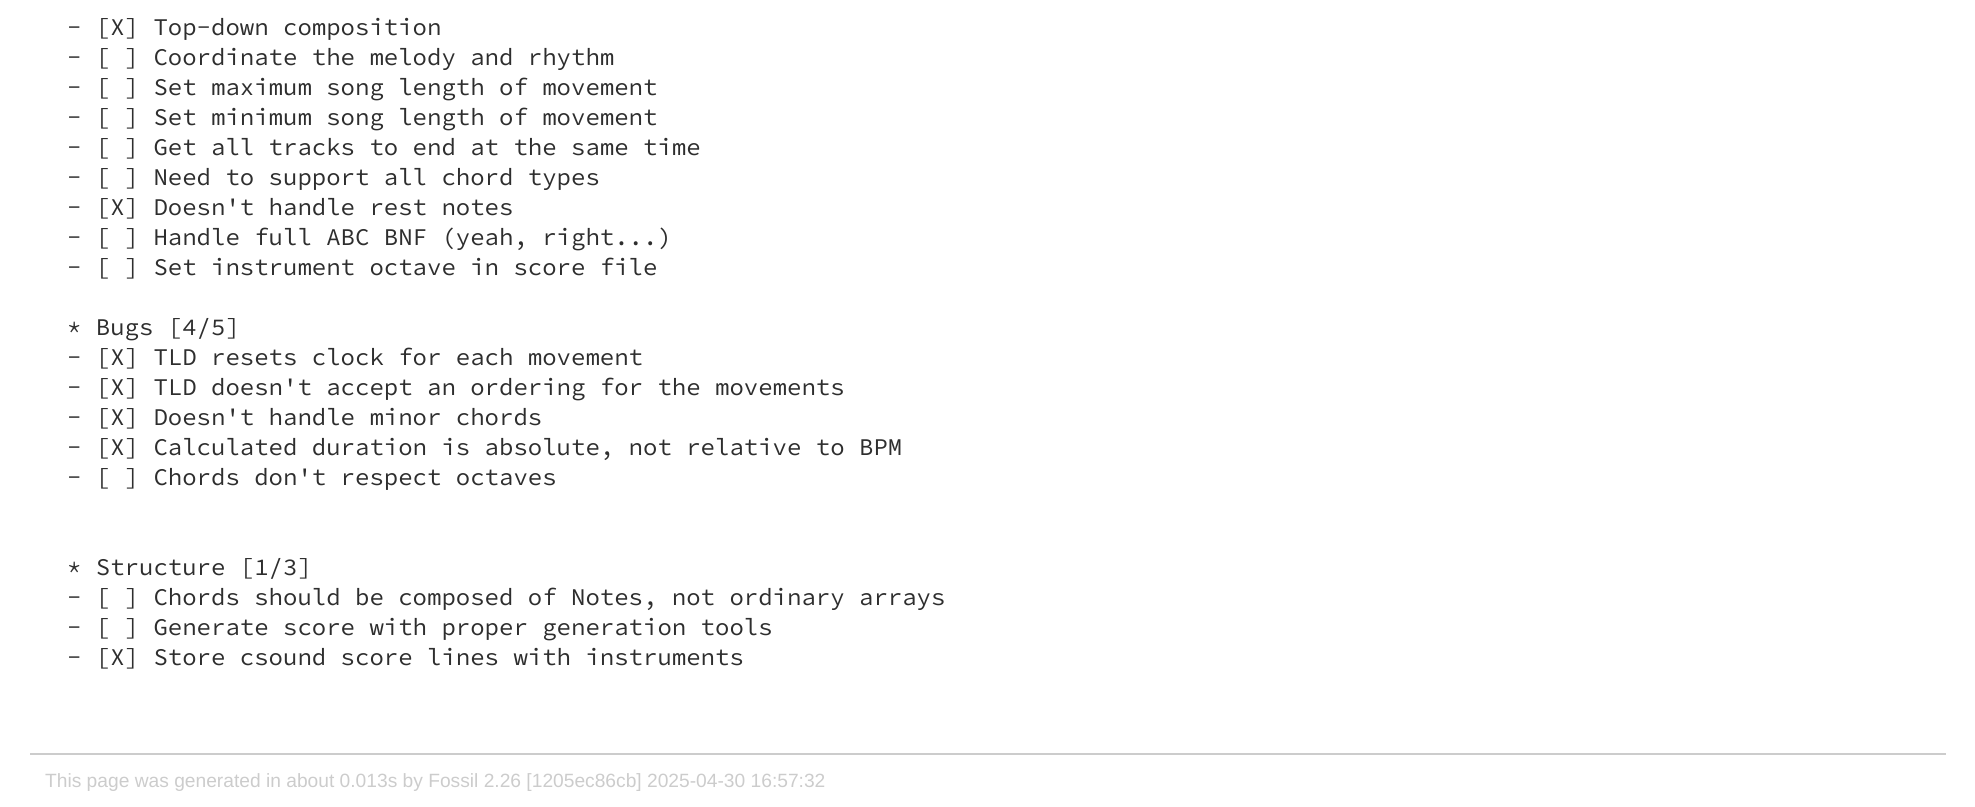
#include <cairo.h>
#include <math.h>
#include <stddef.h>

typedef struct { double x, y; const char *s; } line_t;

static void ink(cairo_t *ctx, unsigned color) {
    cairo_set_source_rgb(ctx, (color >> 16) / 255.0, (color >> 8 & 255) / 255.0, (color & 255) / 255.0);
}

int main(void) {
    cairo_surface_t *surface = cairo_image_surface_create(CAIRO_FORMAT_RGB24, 1975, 807);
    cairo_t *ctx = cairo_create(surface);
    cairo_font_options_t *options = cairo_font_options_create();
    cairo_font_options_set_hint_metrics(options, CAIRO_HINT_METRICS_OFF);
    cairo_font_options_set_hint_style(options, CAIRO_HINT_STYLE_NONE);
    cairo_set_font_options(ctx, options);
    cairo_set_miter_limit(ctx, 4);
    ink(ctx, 0xFFFFFF);
    cairo_paint(ctx);
    cairo_select_font_face(ctx, "Source Code Pro", CAIRO_FONT_SLANT_NORMAL, CAIRO_FONT_WEIGHT_NORMAL);
    cairo_set_font_size(ctx, 24);
    ink(ctx, 0x2E2E2E);
    {
        static const line_t items[] = {
            {67, 35, "- [X] Top-down composition"},
            {67, 65, "- [ ] Coordinate the melody and rhythm"},
            {67, 95, "- [ ] Set maximum song length of movement"},
            {67, 125, "- [ ] Set minimum song length of movement"},
            {67, 155, "- [ ] Get all tracks to end at the same time"},
            {67, 185, "- [ ] Need to support all chord types"},
            {67, 215, "- [X] Doesn't handle rest notes"},
            {67, 245, "- [ ] Handle full ABC BNF (yeah, right...)"},
            {67, 275, "- [ ] Set instrument octave in score file"},
            {67, 335, "* Bugs [4/5]"},
            {67, 365, "- [X] TLD resets clock for each movement"},
            {67, 395, "- [X] TLD doesn't accept an ordering for the movements"},
            {67, 425, "- [X] Doesn't handle minor chords"},
            {67, 455, "- [X] Calculated duration is absolute, not relative to BPM"},
            {67, 485, "- [ ] Chords don't respect octaves"},
            {67, 575, "* Structure [1/3]"},
            {67, 605, "- [ ] Chords should be composed of Notes, not ordinary arrays"},
            {67, 635, "- [ ] Generate score with proper generation tools"},
            {67, 665, "- [X] Store csound score lines with instruments"},
        };
        for (size_t i = 0; i < sizeof items / sizeof *items; i++) {
            cairo_move_to(ctx, items[i].x, items[i].y);
            cairo_show_text(ctx, items[i].s);
        }
    }
    ink(ctx, 0xCCCCCC);
    cairo_rectangle(ctx, 30, 753, 1916, 2);
    cairo_fill(ctx);
    cairo_select_font_face(ctx, "Liberation Sans", CAIRO_FONT_SLANT_NORMAL, CAIRO_FONT_WEIGHT_NORMAL);
    cairo_set_font_size(ctx, 19.2);
    cairo_move_to(ctx, 45, 787);
    cairo_show_text(ctx, "This page was generated in about 0.013s by Fossil 2.26 [1205ec86cb] 2025-04-30 16:57:32");
    cairo_surface_write_to_png(surface, "image.png");
    cairo_font_options_destroy(options);
    cairo_destroy(ctx);
    cairo_surface_destroy(surface);
    return 0;
}
